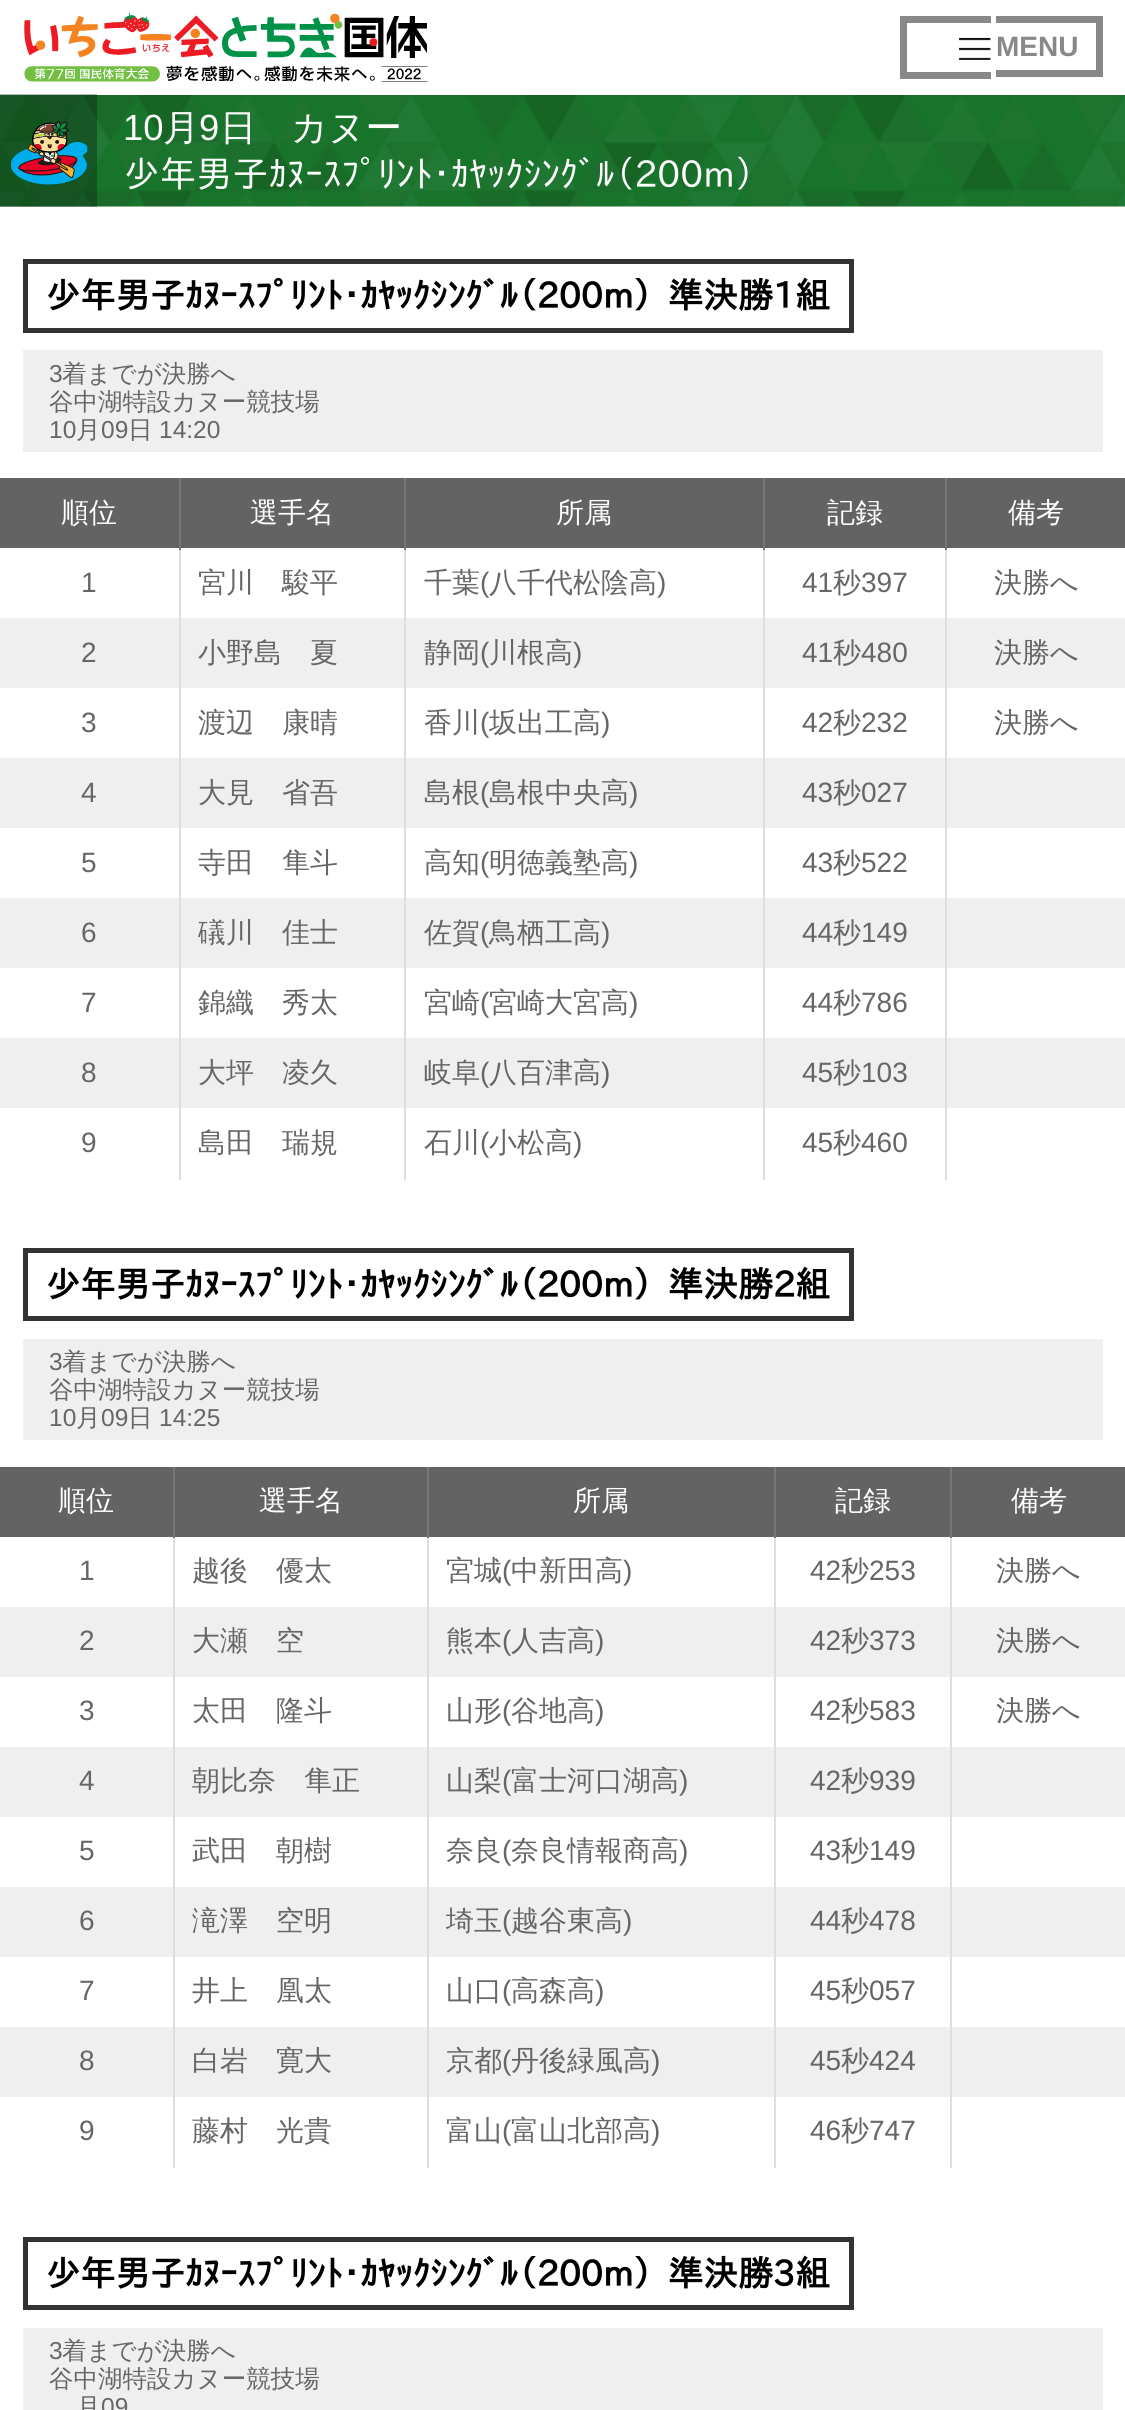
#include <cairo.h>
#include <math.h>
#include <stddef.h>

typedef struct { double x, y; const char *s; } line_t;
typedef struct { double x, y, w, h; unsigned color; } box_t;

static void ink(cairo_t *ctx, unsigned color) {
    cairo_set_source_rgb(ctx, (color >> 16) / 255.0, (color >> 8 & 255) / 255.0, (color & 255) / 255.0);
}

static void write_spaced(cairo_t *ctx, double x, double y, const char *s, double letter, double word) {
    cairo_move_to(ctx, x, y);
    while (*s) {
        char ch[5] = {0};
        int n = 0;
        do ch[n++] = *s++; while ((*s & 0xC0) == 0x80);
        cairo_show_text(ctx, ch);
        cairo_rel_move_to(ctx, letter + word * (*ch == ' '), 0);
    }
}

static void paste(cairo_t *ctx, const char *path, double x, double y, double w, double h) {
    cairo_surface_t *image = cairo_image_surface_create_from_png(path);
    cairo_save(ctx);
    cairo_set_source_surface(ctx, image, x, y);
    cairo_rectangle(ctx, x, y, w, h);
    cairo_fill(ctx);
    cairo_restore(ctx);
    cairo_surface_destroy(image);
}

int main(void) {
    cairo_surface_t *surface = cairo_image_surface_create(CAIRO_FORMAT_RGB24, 1125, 2410);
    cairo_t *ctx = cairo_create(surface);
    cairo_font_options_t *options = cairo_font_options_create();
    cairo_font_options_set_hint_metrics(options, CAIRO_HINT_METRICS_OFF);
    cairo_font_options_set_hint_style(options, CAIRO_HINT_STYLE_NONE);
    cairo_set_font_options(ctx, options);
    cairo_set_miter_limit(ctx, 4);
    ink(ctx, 0xFFFFFF);
    cairo_paint(ctx);
    paste(ctx, "media/1.png", 24, 13, 404, 69);
    {
        static const box_t items[] = {
            {900, 16, 91, 7, 0x888888},
            {900, 72, 91, 7, 0x888888},
            {900, 16, 7, 63, 0x888888},
            {996, 16, 107, 7, 0x888888},
            {1096, 16, 7, 61, 0x888888},
            {996, 70, 107, 7, 0x888888},
        };
        for (size_t i = 0; i < sizeof items / sizeof *items; i++) {
            ink(ctx, items[i].color);
            cairo_rectangle(ctx, items[i].x, items[i].y, items[i].w, items[i].h);
            cairo_fill(ctx);
        }
    }
    paste(ctx, "media/2.png", 959, 37, 32, 23);
    cairo_select_font_face(ctx, "Liberation Sans", CAIRO_FONT_SLANT_NORMAL, CAIRO_FONT_WEIGHT_BOLD);
    cairo_set_font_size(ctx, 28);
    cairo_move_to(ctx, 996, 56);
    cairo_show_text(ctx, "MENU");
    paste(ctx, "media/3.png", 0, 95, 1125, 112);
    cairo_set_source_rgba(ctx, 0, 0, 0, 0.28);
    cairo_rectangle(ctx, 0, 94, 97, 113);
    cairo_fill(ctx);
    paste(ctx, "media/4.png", 11, 120, 77, 65);
    cairo_select_font_face(ctx, "Liberation Sans", CAIRO_FONT_SLANT_NORMAL, CAIRO_FONT_WEIGHT_NORMAL);
    cairo_set_font_size(ctx, 36.4);
    ink(ctx, 0xFFFFFF);
    cairo_move_to(ctx, 123, 140);
    cairo_show_text(ctx, "10");
    cairo_select_font_face(ctx, "WenQuanYi Zen Hei Medium", CAIRO_FONT_SLANT_NORMAL, CAIRO_FONT_WEIGHT_NORMAL);
    cairo_move_to(ctx, 163, 140);
    cairo_show_text(ctx, "月");
    cairo_select_font_face(ctx, "Liberation Sans", CAIRO_FONT_SLANT_NORMAL, CAIRO_FONT_WEIGHT_NORMAL);
    cairo_move_to(ctx, 199, 140);
    cairo_show_text(ctx, "9");
    cairo_select_font_face(ctx, "WenQuanYi Zen Hei Medium", CAIRO_FONT_SLANT_NORMAL, CAIRO_FONT_WEIGHT_NORMAL);
    cairo_move_to(ctx, 220, 140);
    cairo_show_text(ctx, "日");
    cairo_move_to(ctx, 291, 140);
    cairo_show_text(ctx, "カヌー");
    cairo_select_font_face(ctx, "IPAPGothic", CAIRO_FONT_SLANT_NORMAL, CAIRO_FONT_WEIGHT_NORMAL);
    cairo_move_to(ctx, 123, 187);
    cairo_show_text(ctx, "少年男子ｶﾇｰｽﾌﾟﾘﾝﾄ・ｶﾔｯｸｼﾝｸﾞﾙ（200m）");
    cairo_rectangle(ctx, 25.5, 261.5, 826, 69);
    ink(ctx, 0x333333);
    cairo_set_line_width(ctx, 5);
    cairo_stroke(ctx);
    cairo_select_font_face(ctx, "IPAPGothic", CAIRO_FONT_SLANT_NORMAL, CAIRO_FONT_WEIGHT_BOLD);
    cairo_set_font_size(ctx, 35);
    ink(ctx, 0x000000);
    write_spaced(ctx, 45, 308, "少年男子ｶﾇｰｽﾌﾟﾘﾝﾄ・ｶﾔｯｸｼﾝｸﾞﾙ（200m） 準決勝1組", 0, 6);
    ink(ctx, 0xEFEFEF);
    cairo_rectangle(ctx, 23, 350, 1080, 102);
    cairo_fill(ctx);
    cairo_select_font_face(ctx, "Liberation Sans", CAIRO_FONT_SLANT_NORMAL, CAIRO_FONT_WEIGHT_NORMAL);
    cairo_set_font_size(ctx, 24.5);
    ink(ctx, 0x666666);
    cairo_move_to(ctx, 49, 382);
    cairo_show_text(ctx, "3");
    cairo_select_font_face(ctx, "WenQuanYi Zen Hei Medium", CAIRO_FONT_SLANT_NORMAL, CAIRO_FONT_WEIGHT_NORMAL);
    cairo_move_to(ctx, 62, 382);
    cairo_show_text(ctx, "着までが決勝へ");
    cairo_move_to(ctx, 49, 410);
    cairo_show_text(ctx, "谷中湖特設カヌー競技場");
    cairo_select_font_face(ctx, "Liberation Sans", CAIRO_FONT_SLANT_NORMAL, CAIRO_FONT_WEIGHT_NORMAL);
    cairo_move_to(ctx, 49, 438);
    cairo_show_text(ctx, "10");
    cairo_select_font_face(ctx, "WenQuanYi Zen Hei Medium", CAIRO_FONT_SLANT_NORMAL, CAIRO_FONT_WEIGHT_NORMAL);
    cairo_move_to(ctx, 76, 438);
    cairo_show_text(ctx, "月");
    cairo_select_font_face(ctx, "Liberation Sans", CAIRO_FONT_SLANT_NORMAL, CAIRO_FONT_WEIGHT_NORMAL);
    cairo_move_to(ctx, 101, 438);
    cairo_show_text(ctx, "09");
    cairo_select_font_face(ctx, "WenQuanYi Zen Hei Medium", CAIRO_FONT_SLANT_NORMAL, CAIRO_FONT_WEIGHT_NORMAL);
    cairo_move_to(ctx, 128, 438);
    cairo_show_text(ctx, "日");
    cairo_select_font_face(ctx, "Liberation Sans", CAIRO_FONT_SLANT_NORMAL, CAIRO_FONT_WEIGHT_NORMAL);
    cairo_move_to(ctx, 159, 438);
    cairo_show_text(ctx, "14:20");
    ink(ctx, 0x636363);
    cairo_rectangle(ctx, 0, 478, 179, 70);
    cairo_fill(ctx);
    cairo_select_font_face(ctx, "WenQuanYi Zen Hei Medium", CAIRO_FONT_SLANT_NORMAL, CAIRO_FONT_WEIGHT_NORMAL);
    cairo_set_font_size(ctx, 28);
    ink(ctx, 0xFFFFFF);
    cairo_move_to(ctx, 61, 522);
    cairo_show_text(ctx, "順位");
    {
        static const box_t items[] = {
            {181, 478, 223, 70, 0x636363},
            {0, 618, 1125, 70, 0xEFEFEF},
            {0, 758, 1125, 70, 0xEFEFEF},
            {0, 898, 1125, 70, 0xEFEFEF},
            {0, 1038, 1125, 70, 0xEFEFEF},
            {179, 548, 2, 632, 0xDEDEDE},
            {179, 478, 2, 72, 0x777777},
        };
        for (size_t i = 0; i < sizeof items / sizeof *items; i++) {
            ink(ctx, items[i].color);
            cairo_rectangle(ctx, items[i].x, items[i].y, items[i].w, items[i].h);
            cairo_fill(ctx);
        }
    }
    ink(ctx, 0xFFFFFF);
    cairo_move_to(ctx, 250, 522);
    cairo_show_text(ctx, "選手名");
    {
        static const box_t items[] = {
            {406, 478, 357, 70, 0x636363},
            {404, 548, 2, 632, 0xDEDEDE},
            {404, 478, 2, 72, 0x777777},
        };
        for (size_t i = 0; i < sizeof items / sizeof *items; i++) {
            ink(ctx, items[i].color);
            cairo_rectangle(ctx, items[i].x, items[i].y, items[i].w, items[i].h);
            cairo_fill(ctx);
        }
    }
    ink(ctx, 0xFFFFFF);
    cairo_move_to(ctx, 556, 522);
    cairo_show_text(ctx, "所属");
    {
        static const box_t items[] = {
            {765, 478, 180, 70, 0x636363},
            {763, 548, 2, 632, 0xDEDEDE},
            {763, 478, 2, 72, 0x777777},
        };
        for (size_t i = 0; i < sizeof items / sizeof *items; i++) {
            ink(ctx, items[i].color);
            cairo_rectangle(ctx, items[i].x, items[i].y, items[i].w, items[i].h);
            cairo_fill(ctx);
        }
    }
    ink(ctx, 0xFFFFFF);
    cairo_move_to(ctx, 827, 522);
    cairo_show_text(ctx, "記録");
    {
        static const box_t items[] = {
            {947, 478, 178, 70, 0x636363},
            {945, 548, 2, 632, 0xDEDEDE},
            {945, 478, 2, 72, 0x777777},
        };
        for (size_t i = 0; i < sizeof items / sizeof *items; i++) {
            ink(ctx, items[i].color);
            cairo_rectangle(ctx, items[i].x, items[i].y, items[i].w, items[i].h);
            cairo_fill(ctx);
        }
    }
    ink(ctx, 0xFFFFFF);
    cairo_move_to(ctx, 1008, 522);
    cairo_show_text(ctx, "備考");
    cairo_select_font_face(ctx, "Liberation Sans", CAIRO_FONT_SLANT_NORMAL, CAIRO_FONT_WEIGHT_NORMAL);
    ink(ctx, 0x666666);
    cairo_move_to(ctx, 81, 592);
    cairo_show_text(ctx, "1");
    cairo_select_font_face(ctx, "WenQuanYi Zen Hei Medium", CAIRO_FONT_SLANT_NORMAL, CAIRO_FONT_WEIGHT_NORMAL);
    cairo_move_to(ctx, 198, 592);
    cairo_show_text(ctx, "宮川　駿平");
    cairo_move_to(ctx, 424, 592);
    cairo_show_text(ctx, "千葉");
    cairo_select_font_face(ctx, "Liberation Sans", CAIRO_FONT_SLANT_NORMAL, CAIRO_FONT_WEIGHT_NORMAL);
    cairo_move_to(ctx, 480, 592);
    cairo_show_text(ctx, "(");
    cairo_select_font_face(ctx, "WenQuanYi Zen Hei Medium", CAIRO_FONT_SLANT_NORMAL, CAIRO_FONT_WEIGHT_NORMAL);
    cairo_move_to(ctx, 489, 592);
    cairo_show_text(ctx, "八千代松陰高");
    cairo_select_font_face(ctx, "Liberation Sans", CAIRO_FONT_SLANT_NORMAL, CAIRO_FONT_WEIGHT_NORMAL);
    cairo_move_to(ctx, 657, 592);
    cairo_show_text(ctx, ")");
    cairo_move_to(ctx, 802, 592);
    cairo_show_text(ctx, "41");
    cairo_select_font_face(ctx, "WenQuanYi Zen Hei Medium", CAIRO_FONT_SLANT_NORMAL, CAIRO_FONT_WEIGHT_NORMAL);
    cairo_move_to(ctx, 833, 592);
    cairo_show_text(ctx, "秒");
    cairo_select_font_face(ctx, "Liberation Sans", CAIRO_FONT_SLANT_NORMAL, CAIRO_FONT_WEIGHT_NORMAL);
    cairo_move_to(ctx, 861, 592);
    cairo_show_text(ctx, "397");
    cairo_select_font_face(ctx, "WenQuanYi Zen Hei Medium", CAIRO_FONT_SLANT_NORMAL, CAIRO_FONT_WEIGHT_NORMAL);
    cairo_move_to(ctx, 994, 592);
    cairo_show_text(ctx, "決勝へ");
    cairo_select_font_face(ctx, "Liberation Sans", CAIRO_FONT_SLANT_NORMAL, CAIRO_FONT_WEIGHT_NORMAL);
    cairo_move_to(ctx, 81, 662);
    cairo_show_text(ctx, "2");
    cairo_select_font_face(ctx, "WenQuanYi Zen Hei Medium", CAIRO_FONT_SLANT_NORMAL, CAIRO_FONT_WEIGHT_NORMAL);
    cairo_move_to(ctx, 198, 662);
    cairo_show_text(ctx, "小野島　夏");
    cairo_move_to(ctx, 424, 662);
    cairo_show_text(ctx, "静岡");
    cairo_select_font_face(ctx, "Liberation Sans", CAIRO_FONT_SLANT_NORMAL, CAIRO_FONT_WEIGHT_NORMAL);
    cairo_move_to(ctx, 480, 662);
    cairo_show_text(ctx, "(");
    cairo_select_font_face(ctx, "WenQuanYi Zen Hei Medium", CAIRO_FONT_SLANT_NORMAL, CAIRO_FONT_WEIGHT_NORMAL);
    cairo_move_to(ctx, 489, 662);
    cairo_show_text(ctx, "川根高");
    cairo_select_font_face(ctx, "Liberation Sans", CAIRO_FONT_SLANT_NORMAL, CAIRO_FONT_WEIGHT_NORMAL);
    cairo_move_to(ctx, 573, 662);
    cairo_show_text(ctx, ")");
    cairo_move_to(ctx, 802, 662);
    cairo_show_text(ctx, "41");
    cairo_select_font_face(ctx, "WenQuanYi Zen Hei Medium", CAIRO_FONT_SLANT_NORMAL, CAIRO_FONT_WEIGHT_NORMAL);
    cairo_move_to(ctx, 833, 662);
    cairo_show_text(ctx, "秒");
    cairo_select_font_face(ctx, "Liberation Sans", CAIRO_FONT_SLANT_NORMAL, CAIRO_FONT_WEIGHT_NORMAL);
    cairo_move_to(ctx, 861, 662);
    cairo_show_text(ctx, "480");
    cairo_select_font_face(ctx, "WenQuanYi Zen Hei Medium", CAIRO_FONT_SLANT_NORMAL, CAIRO_FONT_WEIGHT_NORMAL);
    cairo_move_to(ctx, 994, 662);
    cairo_show_text(ctx, "決勝へ");
    cairo_select_font_face(ctx, "Liberation Sans", CAIRO_FONT_SLANT_NORMAL, CAIRO_FONT_WEIGHT_NORMAL);
    cairo_move_to(ctx, 81, 732);
    cairo_show_text(ctx, "3");
    cairo_select_font_face(ctx, "WenQuanYi Zen Hei Medium", CAIRO_FONT_SLANT_NORMAL, CAIRO_FONT_WEIGHT_NORMAL);
    cairo_move_to(ctx, 198, 732);
    cairo_show_text(ctx, "渡辺　康晴");
    cairo_move_to(ctx, 424, 732);
    cairo_show_text(ctx, "香川");
    cairo_select_font_face(ctx, "Liberation Sans", CAIRO_FONT_SLANT_NORMAL, CAIRO_FONT_WEIGHT_NORMAL);
    cairo_move_to(ctx, 480, 732);
    cairo_show_text(ctx, "(");
    cairo_select_font_face(ctx, "WenQuanYi Zen Hei Medium", CAIRO_FONT_SLANT_NORMAL, CAIRO_FONT_WEIGHT_NORMAL);
    cairo_move_to(ctx, 489, 732);
    cairo_show_text(ctx, "坂出工高");
    cairo_select_font_face(ctx, "Liberation Sans", CAIRO_FONT_SLANT_NORMAL, CAIRO_FONT_WEIGHT_NORMAL);
    cairo_move_to(ctx, 601, 732);
    cairo_show_text(ctx, ")");
    cairo_move_to(ctx, 802, 732);
    cairo_show_text(ctx, "42");
    cairo_select_font_face(ctx, "WenQuanYi Zen Hei Medium", CAIRO_FONT_SLANT_NORMAL, CAIRO_FONT_WEIGHT_NORMAL);
    cairo_move_to(ctx, 833, 732);
    cairo_show_text(ctx, "秒");
    cairo_select_font_face(ctx, "Liberation Sans", CAIRO_FONT_SLANT_NORMAL, CAIRO_FONT_WEIGHT_NORMAL);
    cairo_move_to(ctx, 861, 732);
    cairo_show_text(ctx, "232");
    cairo_select_font_face(ctx, "WenQuanYi Zen Hei Medium", CAIRO_FONT_SLANT_NORMAL, CAIRO_FONT_WEIGHT_NORMAL);
    cairo_move_to(ctx, 994, 732);
    cairo_show_text(ctx, "決勝へ");
    cairo_select_font_face(ctx, "Liberation Sans", CAIRO_FONT_SLANT_NORMAL, CAIRO_FONT_WEIGHT_NORMAL);
    cairo_move_to(ctx, 81, 802);
    cairo_show_text(ctx, "4");
    cairo_select_font_face(ctx, "WenQuanYi Zen Hei Medium", CAIRO_FONT_SLANT_NORMAL, CAIRO_FONT_WEIGHT_NORMAL);
    cairo_move_to(ctx, 198, 802);
    cairo_show_text(ctx, "大見　省吾");
    cairo_move_to(ctx, 424, 802);
    cairo_show_text(ctx, "島根");
    cairo_select_font_face(ctx, "Liberation Sans", CAIRO_FONT_SLANT_NORMAL, CAIRO_FONT_WEIGHT_NORMAL);
    cairo_move_to(ctx, 480, 802);
    cairo_show_text(ctx, "(");
    cairo_select_font_face(ctx, "WenQuanYi Zen Hei Medium", CAIRO_FONT_SLANT_NORMAL, CAIRO_FONT_WEIGHT_NORMAL);
    cairo_move_to(ctx, 489, 802);
    cairo_show_text(ctx, "島根中央高");
    cairo_select_font_face(ctx, "Liberation Sans", CAIRO_FONT_SLANT_NORMAL, CAIRO_FONT_WEIGHT_NORMAL);
    cairo_move_to(ctx, 629, 802);
    cairo_show_text(ctx, ")");
    cairo_move_to(ctx, 802, 802);
    cairo_show_text(ctx, "43");
    cairo_select_font_face(ctx, "WenQuanYi Zen Hei Medium", CAIRO_FONT_SLANT_NORMAL, CAIRO_FONT_WEIGHT_NORMAL);
    cairo_move_to(ctx, 833, 802);
    cairo_show_text(ctx, "秒");
    cairo_select_font_face(ctx, "Liberation Sans", CAIRO_FONT_SLANT_NORMAL, CAIRO_FONT_WEIGHT_NORMAL);
    cairo_move_to(ctx, 861, 802);
    cairo_show_text(ctx, "027");
    cairo_move_to(ctx, 81, 872);
    cairo_show_text(ctx, "5");
    cairo_select_font_face(ctx, "WenQuanYi Zen Hei Medium", CAIRO_FONT_SLANT_NORMAL, CAIRO_FONT_WEIGHT_NORMAL);
    cairo_move_to(ctx, 198, 872);
    cairo_show_text(ctx, "寺田　隼斗");
    cairo_move_to(ctx, 424, 872);
    cairo_show_text(ctx, "高知");
    cairo_select_font_face(ctx, "Liberation Sans", CAIRO_FONT_SLANT_NORMAL, CAIRO_FONT_WEIGHT_NORMAL);
    cairo_move_to(ctx, 480, 872);
    cairo_show_text(ctx, "(");
    cairo_select_font_face(ctx, "WenQuanYi Zen Hei Medium", CAIRO_FONT_SLANT_NORMAL, CAIRO_FONT_WEIGHT_NORMAL);
    cairo_move_to(ctx, 489, 872);
    cairo_show_text(ctx, "明徳義塾高");
    cairo_select_font_face(ctx, "Liberation Sans", CAIRO_FONT_SLANT_NORMAL, CAIRO_FONT_WEIGHT_NORMAL);
    cairo_move_to(ctx, 629, 872);
    cairo_show_text(ctx, ")");
    cairo_move_to(ctx, 802, 872);
    cairo_show_text(ctx, "43");
    cairo_select_font_face(ctx, "WenQuanYi Zen Hei Medium", CAIRO_FONT_SLANT_NORMAL, CAIRO_FONT_WEIGHT_NORMAL);
    cairo_move_to(ctx, 833, 872);
    cairo_show_text(ctx, "秒");
    cairo_select_font_face(ctx, "Liberation Sans", CAIRO_FONT_SLANT_NORMAL, CAIRO_FONT_WEIGHT_NORMAL);
    cairo_move_to(ctx, 861, 872);
    cairo_show_text(ctx, "522");
    cairo_move_to(ctx, 81, 942);
    cairo_show_text(ctx, "6");
    cairo_select_font_face(ctx, "WenQuanYi Zen Hei Medium", CAIRO_FONT_SLANT_NORMAL, CAIRO_FONT_WEIGHT_NORMAL);
    cairo_move_to(ctx, 198, 942);
    cairo_show_text(ctx, "礒川　佳士");
    cairo_move_to(ctx, 424, 942);
    cairo_show_text(ctx, "佐賀");
    cairo_select_font_face(ctx, "Liberation Sans", CAIRO_FONT_SLANT_NORMAL, CAIRO_FONT_WEIGHT_NORMAL);
    cairo_move_to(ctx, 480, 942);
    cairo_show_text(ctx, "(");
    cairo_select_font_face(ctx, "WenQuanYi Zen Hei Medium", CAIRO_FONT_SLANT_NORMAL, CAIRO_FONT_WEIGHT_NORMAL);
    cairo_move_to(ctx, 489, 942);
    cairo_show_text(ctx, "鳥栖工高");
    cairo_select_font_face(ctx, "Liberation Sans", CAIRO_FONT_SLANT_NORMAL, CAIRO_FONT_WEIGHT_NORMAL);
    cairo_move_to(ctx, 601, 942);
    cairo_show_text(ctx, ")");
    cairo_move_to(ctx, 802, 942);
    cairo_show_text(ctx, "44");
    cairo_select_font_face(ctx, "WenQuanYi Zen Hei Medium", CAIRO_FONT_SLANT_NORMAL, CAIRO_FONT_WEIGHT_NORMAL);
    cairo_move_to(ctx, 833, 942);
    cairo_show_text(ctx, "秒");
    cairo_select_font_face(ctx, "Liberation Sans", CAIRO_FONT_SLANT_NORMAL, CAIRO_FONT_WEIGHT_NORMAL);
    cairo_move_to(ctx, 861, 942);
    cairo_show_text(ctx, "149");
    cairo_move_to(ctx, 81, 1012);
    cairo_show_text(ctx, "7");
    cairo_select_font_face(ctx, "WenQuanYi Zen Hei Medium", CAIRO_FONT_SLANT_NORMAL, CAIRO_FONT_WEIGHT_NORMAL);
    cairo_move_to(ctx, 198, 1012);
    cairo_show_text(ctx, "錦織　秀太");
    cairo_move_to(ctx, 424, 1012);
    cairo_show_text(ctx, "宮崎");
    cairo_select_font_face(ctx, "Liberation Sans", CAIRO_FONT_SLANT_NORMAL, CAIRO_FONT_WEIGHT_NORMAL);
    cairo_move_to(ctx, 480, 1012);
    cairo_show_text(ctx, "(");
    cairo_select_font_face(ctx, "WenQuanYi Zen Hei Medium", CAIRO_FONT_SLANT_NORMAL, CAIRO_FONT_WEIGHT_NORMAL);
    cairo_move_to(ctx, 489, 1012);
    cairo_show_text(ctx, "宮崎大宮高");
    cairo_select_font_face(ctx, "Liberation Sans", CAIRO_FONT_SLANT_NORMAL, CAIRO_FONT_WEIGHT_NORMAL);
    cairo_move_to(ctx, 629, 1012);
    cairo_show_text(ctx, ")");
    cairo_move_to(ctx, 802, 1012);
    cairo_show_text(ctx, "44");
    cairo_select_font_face(ctx, "WenQuanYi Zen Hei Medium", CAIRO_FONT_SLANT_NORMAL, CAIRO_FONT_WEIGHT_NORMAL);
    cairo_move_to(ctx, 833, 1012);
    cairo_show_text(ctx, "秒");
    cairo_select_font_face(ctx, "Liberation Sans", CAIRO_FONT_SLANT_NORMAL, CAIRO_FONT_WEIGHT_NORMAL);
    cairo_move_to(ctx, 861, 1012);
    cairo_show_text(ctx, "786");
    cairo_move_to(ctx, 81, 1082);
    cairo_show_text(ctx, "8");
    cairo_select_font_face(ctx, "WenQuanYi Zen Hei Medium", CAIRO_FONT_SLANT_NORMAL, CAIRO_FONT_WEIGHT_NORMAL);
    cairo_move_to(ctx, 198, 1082);
    cairo_show_text(ctx, "大坪　凌久");
    cairo_move_to(ctx, 424, 1082);
    cairo_show_text(ctx, "岐阜");
    cairo_select_font_face(ctx, "Liberation Sans", CAIRO_FONT_SLANT_NORMAL, CAIRO_FONT_WEIGHT_NORMAL);
    cairo_move_to(ctx, 480, 1082);
    cairo_show_text(ctx, "(");
    cairo_select_font_face(ctx, "WenQuanYi Zen Hei Medium", CAIRO_FONT_SLANT_NORMAL, CAIRO_FONT_WEIGHT_NORMAL);
    cairo_move_to(ctx, 489, 1082);
    cairo_show_text(ctx, "八百津高");
    cairo_select_font_face(ctx, "Liberation Sans", CAIRO_FONT_SLANT_NORMAL, CAIRO_FONT_WEIGHT_NORMAL);
    cairo_move_to(ctx, 601, 1082);
    cairo_show_text(ctx, ")");
    cairo_move_to(ctx, 802, 1082);
    cairo_show_text(ctx, "45");
    cairo_select_font_face(ctx, "WenQuanYi Zen Hei Medium", CAIRO_FONT_SLANT_NORMAL, CAIRO_FONT_WEIGHT_NORMAL);
    cairo_move_to(ctx, 833, 1082);
    cairo_show_text(ctx, "秒");
    cairo_select_font_face(ctx, "Liberation Sans", CAIRO_FONT_SLANT_NORMAL, CAIRO_FONT_WEIGHT_NORMAL);
    cairo_move_to(ctx, 861, 1082);
    cairo_show_text(ctx, "103");
    cairo_move_to(ctx, 81, 1152);
    cairo_show_text(ctx, "9");
    cairo_select_font_face(ctx, "WenQuanYi Zen Hei Medium", CAIRO_FONT_SLANT_NORMAL, CAIRO_FONT_WEIGHT_NORMAL);
    cairo_move_to(ctx, 198, 1152);
    cairo_show_text(ctx, "島田　瑞規");
    cairo_move_to(ctx, 424, 1152);
    cairo_show_text(ctx, "石川");
    cairo_select_font_face(ctx, "Liberation Sans", CAIRO_FONT_SLANT_NORMAL, CAIRO_FONT_WEIGHT_NORMAL);
    cairo_move_to(ctx, 480, 1152);
    cairo_show_text(ctx, "(");
    cairo_select_font_face(ctx, "WenQuanYi Zen Hei Medium", CAIRO_FONT_SLANT_NORMAL, CAIRO_FONT_WEIGHT_NORMAL);
    cairo_move_to(ctx, 489, 1152);
    cairo_show_text(ctx, "小松高");
    cairo_select_font_face(ctx, "Liberation Sans", CAIRO_FONT_SLANT_NORMAL, CAIRO_FONT_WEIGHT_NORMAL);
    cairo_move_to(ctx, 573, 1152);
    cairo_show_text(ctx, ")");
    cairo_move_to(ctx, 802, 1152);
    cairo_show_text(ctx, "45");
    cairo_select_font_face(ctx, "WenQuanYi Zen Hei Medium", CAIRO_FONT_SLANT_NORMAL, CAIRO_FONT_WEIGHT_NORMAL);
    cairo_move_to(ctx, 833, 1152);
    cairo_show_text(ctx, "秒");
    cairo_select_font_face(ctx, "Liberation Sans", CAIRO_FONT_SLANT_NORMAL, CAIRO_FONT_WEIGHT_NORMAL);
    cairo_move_to(ctx, 861, 1152);
    cairo_show_text(ctx, "460");
    cairo_rectangle(ctx, 25.5, 1250.5, 826, 68);
    ink(ctx, 0x333333);
    cairo_stroke(ctx);
    cairo_select_font_face(ctx, "IPAPGothic", CAIRO_FONT_SLANT_NORMAL, CAIRO_FONT_WEIGHT_BOLD);
    cairo_set_font_size(ctx, 35);
    ink(ctx, 0x000000);
    write_spaced(ctx, 45, 1297, "少年男子ｶﾇｰｽﾌﾟﾘﾝﾄ・ｶﾔｯｸｼﾝｸﾞﾙ（200m） 準決勝2組", 0, 6);
    ink(ctx, 0xEFEFEF);
    cairo_rectangle(ctx, 23, 1339, 1080, 101);
    cairo_fill(ctx);
    cairo_select_font_face(ctx, "Liberation Sans", CAIRO_FONT_SLANT_NORMAL, CAIRO_FONT_WEIGHT_NORMAL);
    cairo_set_font_size(ctx, 24.5);
    ink(ctx, 0x666666);
    cairo_move_to(ctx, 49, 1370);
    cairo_show_text(ctx, "3");
    cairo_select_font_face(ctx, "WenQuanYi Zen Hei Medium", CAIRO_FONT_SLANT_NORMAL, CAIRO_FONT_WEIGHT_NORMAL);
    cairo_move_to(ctx, 62, 1370);
    cairo_show_text(ctx, "着までが決勝へ");
    cairo_move_to(ctx, 49, 1398);
    cairo_show_text(ctx, "谷中湖特設カヌー競技場");
    cairo_select_font_face(ctx, "Liberation Sans", CAIRO_FONT_SLANT_NORMAL, CAIRO_FONT_WEIGHT_NORMAL);
    cairo_move_to(ctx, 49, 1426);
    cairo_show_text(ctx, "10");
    cairo_select_font_face(ctx, "WenQuanYi Zen Hei Medium", CAIRO_FONT_SLANT_NORMAL, CAIRO_FONT_WEIGHT_NORMAL);
    cairo_move_to(ctx, 76, 1426);
    cairo_show_text(ctx, "月");
    cairo_select_font_face(ctx, "Liberation Sans", CAIRO_FONT_SLANT_NORMAL, CAIRO_FONT_WEIGHT_NORMAL);
    cairo_move_to(ctx, 101, 1426);
    cairo_show_text(ctx, "09");
    cairo_select_font_face(ctx, "WenQuanYi Zen Hei Medium", CAIRO_FONT_SLANT_NORMAL, CAIRO_FONT_WEIGHT_NORMAL);
    cairo_move_to(ctx, 128, 1426);
    cairo_show_text(ctx, "日");
    cairo_select_font_face(ctx, "Liberation Sans", CAIRO_FONT_SLANT_NORMAL, CAIRO_FONT_WEIGHT_NORMAL);
    cairo_move_to(ctx, 159, 1426);
    cairo_show_text(ctx, "14:25");
    ink(ctx, 0x636363);
    cairo_rectangle(ctx, 0, 1467, 173, 70);
    cairo_fill(ctx);
    cairo_select_font_face(ctx, "WenQuanYi Zen Hei Medium", CAIRO_FONT_SLANT_NORMAL, CAIRO_FONT_WEIGHT_NORMAL);
    cairo_set_font_size(ctx, 28);
    ink(ctx, 0xFFFFFF);
    cairo_move_to(ctx, 58, 1510);
    cairo_show_text(ctx, "順位");
    {
        static const box_t items[] = {
            {175, 1467, 252, 70, 0x636363},
            {0, 1607, 1125, 70, 0xEFEFEF},
            {0, 1747, 1125, 70, 0xEFEFEF},
            {0, 1887, 1125, 70, 0xEFEFEF},
            {0, 2027, 1125, 70, 0xEFEFEF},
            {173, 1537, 2, 631, 0xDEDEDE},
            {173, 1467, 2, 71, 0x777777},
        };
        for (size_t i = 0; i < sizeof items / sizeof *items; i++) {
            ink(ctx, items[i].color);
            cairo_rectangle(ctx, items[i].x, items[i].y, items[i].w, items[i].h);
            cairo_fill(ctx);
        }
    }
    ink(ctx, 0xFFFFFF);
    cairo_move_to(ctx, 259, 1510);
    cairo_show_text(ctx, "選手名");
    {
        static const box_t items[] = {
            {429, 1467, 345, 70, 0x636363},
            {427, 1537, 2, 631, 0xDEDEDE},
            {427, 1467, 2, 71, 0x777777},
        };
        for (size_t i = 0; i < sizeof items / sizeof *items; i++) {
            ink(ctx, items[i].color);
            cairo_rectangle(ctx, items[i].x, items[i].y, items[i].w, items[i].h);
            cairo_fill(ctx);
        }
    }
    ink(ctx, 0xFFFFFF);
    cairo_move_to(ctx, 573, 1510);
    cairo_show_text(ctx, "所属");
    {
        static const box_t items[] = {
            {776, 1467, 174, 70, 0x636363},
            {774, 1537, 2, 631, 0xDEDEDE},
            {774, 1467, 2, 71, 0x777777},
        };
        for (size_t i = 0; i < sizeof items / sizeof *items; i++) {
            ink(ctx, items[i].color);
            cairo_rectangle(ctx, items[i].x, items[i].y, items[i].w, items[i].h);
            cairo_fill(ctx);
        }
    }
    ink(ctx, 0xFFFFFF);
    cairo_move_to(ctx, 835, 1510);
    cairo_show_text(ctx, "記録");
    {
        static const box_t items[] = {
            {952, 1467, 173, 70, 0x636363},
            {950, 1537, 2, 631, 0xDEDEDE},
            {950, 1467, 2, 71, 0x777777},
        };
        for (size_t i = 0; i < sizeof items / sizeof *items; i++) {
            ink(ctx, items[i].color);
            cairo_rectangle(ctx, items[i].x, items[i].y, items[i].w, items[i].h);
            cairo_fill(ctx);
        }
    }
    ink(ctx, 0xFFFFFF);
    cairo_move_to(ctx, 1011, 1510);
    cairo_show_text(ctx, "備考");
    cairo_select_font_face(ctx, "Liberation Sans", CAIRO_FONT_SLANT_NORMAL, CAIRO_FONT_WEIGHT_NORMAL);
    ink(ctx, 0x666666);
    cairo_move_to(ctx, 79, 1580);
    cairo_show_text(ctx, "1");
    cairo_select_font_face(ctx, "WenQuanYi Zen Hei Medium", CAIRO_FONT_SLANT_NORMAL, CAIRO_FONT_WEIGHT_NORMAL);
    cairo_move_to(ctx, 192, 1580);
    cairo_show_text(ctx, "越後　優太");
    cairo_move_to(ctx, 446, 1580);
    cairo_show_text(ctx, "宮城");
    cairo_select_font_face(ctx, "Liberation Sans", CAIRO_FONT_SLANT_NORMAL, CAIRO_FONT_WEIGHT_NORMAL);
    cairo_move_to(ctx, 502, 1580);
    cairo_show_text(ctx, "(");
    cairo_select_font_face(ctx, "WenQuanYi Zen Hei Medium", CAIRO_FONT_SLANT_NORMAL, CAIRO_FONT_WEIGHT_NORMAL);
    cairo_move_to(ctx, 511, 1580);
    cairo_show_text(ctx, "中新田高");
    cairo_select_font_face(ctx, "Liberation Sans", CAIRO_FONT_SLANT_NORMAL, CAIRO_FONT_WEIGHT_NORMAL);
    cairo_move_to(ctx, 623, 1580);
    cairo_show_text(ctx, ")");
    cairo_move_to(ctx, 810, 1580);
    cairo_show_text(ctx, "42");
    cairo_select_font_face(ctx, "WenQuanYi Zen Hei Medium", CAIRO_FONT_SLANT_NORMAL, CAIRO_FONT_WEIGHT_NORMAL);
    cairo_move_to(ctx, 841, 1580);
    cairo_show_text(ctx, "秒");
    cairo_select_font_face(ctx, "Liberation Sans", CAIRO_FONT_SLANT_NORMAL, CAIRO_FONT_WEIGHT_NORMAL);
    cairo_move_to(ctx, 869, 1580);
    cairo_show_text(ctx, "253");
    cairo_select_font_face(ctx, "WenQuanYi Zen Hei Medium", CAIRO_FONT_SLANT_NORMAL, CAIRO_FONT_WEIGHT_NORMAL);
    cairo_move_to(ctx, 996, 1580);
    cairo_show_text(ctx, "決勝へ");
    cairo_select_font_face(ctx, "Liberation Sans", CAIRO_FONT_SLANT_NORMAL, CAIRO_FONT_WEIGHT_NORMAL);
    cairo_move_to(ctx, 79, 1650);
    cairo_show_text(ctx, "2");
    cairo_select_font_face(ctx, "WenQuanYi Zen Hei Medium", CAIRO_FONT_SLANT_NORMAL, CAIRO_FONT_WEIGHT_NORMAL);
    cairo_move_to(ctx, 192, 1650);
    cairo_show_text(ctx, "大瀬　空");
    cairo_move_to(ctx, 446, 1650);
    cairo_show_text(ctx, "熊本");
    cairo_select_font_face(ctx, "Liberation Sans", CAIRO_FONT_SLANT_NORMAL, CAIRO_FONT_WEIGHT_NORMAL);
    cairo_move_to(ctx, 502, 1650);
    cairo_show_text(ctx, "(");
    cairo_select_font_face(ctx, "WenQuanYi Zen Hei Medium", CAIRO_FONT_SLANT_NORMAL, CAIRO_FONT_WEIGHT_NORMAL);
    cairo_move_to(ctx, 511, 1650);
    cairo_show_text(ctx, "人吉高");
    cairo_select_font_face(ctx, "Liberation Sans", CAIRO_FONT_SLANT_NORMAL, CAIRO_FONT_WEIGHT_NORMAL);
    cairo_move_to(ctx, 595, 1650);
    cairo_show_text(ctx, ")");
    cairo_move_to(ctx, 810, 1650);
    cairo_show_text(ctx, "42");
    cairo_select_font_face(ctx, "WenQuanYi Zen Hei Medium", CAIRO_FONT_SLANT_NORMAL, CAIRO_FONT_WEIGHT_NORMAL);
    cairo_move_to(ctx, 841, 1650);
    cairo_show_text(ctx, "秒");
    cairo_select_font_face(ctx, "Liberation Sans", CAIRO_FONT_SLANT_NORMAL, CAIRO_FONT_WEIGHT_NORMAL);
    cairo_move_to(ctx, 869, 1650);
    cairo_show_text(ctx, "373");
    cairo_select_font_face(ctx, "WenQuanYi Zen Hei Medium", CAIRO_FONT_SLANT_NORMAL, CAIRO_FONT_WEIGHT_NORMAL);
    cairo_move_to(ctx, 996, 1650);
    cairo_show_text(ctx, "決勝へ");
    cairo_select_font_face(ctx, "Liberation Sans", CAIRO_FONT_SLANT_NORMAL, CAIRO_FONT_WEIGHT_NORMAL);
    cairo_move_to(ctx, 79, 1720);
    cairo_show_text(ctx, "3");
    cairo_select_font_face(ctx, "WenQuanYi Zen Hei Medium", CAIRO_FONT_SLANT_NORMAL, CAIRO_FONT_WEIGHT_NORMAL);
    cairo_move_to(ctx, 192, 1720);
    cairo_show_text(ctx, "太田　隆斗");
    cairo_move_to(ctx, 446, 1720);
    cairo_show_text(ctx, "山形");
    cairo_select_font_face(ctx, "Liberation Sans", CAIRO_FONT_SLANT_NORMAL, CAIRO_FONT_WEIGHT_NORMAL);
    cairo_move_to(ctx, 502, 1720);
    cairo_show_text(ctx, "(");
    cairo_select_font_face(ctx, "WenQuanYi Zen Hei Medium", CAIRO_FONT_SLANT_NORMAL, CAIRO_FONT_WEIGHT_NORMAL);
    cairo_move_to(ctx, 511, 1720);
    cairo_show_text(ctx, "谷地高");
    cairo_select_font_face(ctx, "Liberation Sans", CAIRO_FONT_SLANT_NORMAL, CAIRO_FONT_WEIGHT_NORMAL);
    cairo_move_to(ctx, 595, 1720);
    cairo_show_text(ctx, ")");
    cairo_move_to(ctx, 810, 1720);
    cairo_show_text(ctx, "42");
    cairo_select_font_face(ctx, "WenQuanYi Zen Hei Medium", CAIRO_FONT_SLANT_NORMAL, CAIRO_FONT_WEIGHT_NORMAL);
    cairo_move_to(ctx, 841, 1720);
    cairo_show_text(ctx, "秒");
    cairo_select_font_face(ctx, "Liberation Sans", CAIRO_FONT_SLANT_NORMAL, CAIRO_FONT_WEIGHT_NORMAL);
    cairo_move_to(ctx, 869, 1720);
    cairo_show_text(ctx, "583");
    cairo_select_font_face(ctx, "WenQuanYi Zen Hei Medium", CAIRO_FONT_SLANT_NORMAL, CAIRO_FONT_WEIGHT_NORMAL);
    cairo_move_to(ctx, 996, 1720);
    cairo_show_text(ctx, "決勝へ");
    cairo_select_font_face(ctx, "Liberation Sans", CAIRO_FONT_SLANT_NORMAL, CAIRO_FONT_WEIGHT_NORMAL);
    cairo_move_to(ctx, 79, 1790);
    cairo_show_text(ctx, "4");
    cairo_select_font_face(ctx, "WenQuanYi Zen Hei Medium", CAIRO_FONT_SLANT_NORMAL, CAIRO_FONT_WEIGHT_NORMAL);
    cairo_move_to(ctx, 192, 1790);
    cairo_show_text(ctx, "朝比奈　隼正");
    cairo_move_to(ctx, 446, 1790);
    cairo_show_text(ctx, "山梨");
    cairo_select_font_face(ctx, "Liberation Sans", CAIRO_FONT_SLANT_NORMAL, CAIRO_FONT_WEIGHT_NORMAL);
    cairo_move_to(ctx, 502, 1790);
    cairo_show_text(ctx, "(");
    cairo_select_font_face(ctx, "WenQuanYi Zen Hei Medium", CAIRO_FONT_SLANT_NORMAL, CAIRO_FONT_WEIGHT_NORMAL);
    cairo_move_to(ctx, 511, 1790);
    cairo_show_text(ctx, "富士河口湖高");
    cairo_select_font_face(ctx, "Liberation Sans", CAIRO_FONT_SLANT_NORMAL, CAIRO_FONT_WEIGHT_NORMAL);
    cairo_move_to(ctx, 679, 1790);
    cairo_show_text(ctx, ")");
    cairo_move_to(ctx, 810, 1790);
    cairo_show_text(ctx, "42");
    cairo_select_font_face(ctx, "WenQuanYi Zen Hei Medium", CAIRO_FONT_SLANT_NORMAL, CAIRO_FONT_WEIGHT_NORMAL);
    cairo_move_to(ctx, 841, 1790);
    cairo_show_text(ctx, "秒");
    cairo_select_font_face(ctx, "Liberation Sans", CAIRO_FONT_SLANT_NORMAL, CAIRO_FONT_WEIGHT_NORMAL);
    cairo_move_to(ctx, 869, 1790);
    cairo_show_text(ctx, "939");
    cairo_move_to(ctx, 79, 1860);
    cairo_show_text(ctx, "5");
    cairo_select_font_face(ctx, "WenQuanYi Zen Hei Medium", CAIRO_FONT_SLANT_NORMAL, CAIRO_FONT_WEIGHT_NORMAL);
    cairo_move_to(ctx, 192, 1860);
    cairo_show_text(ctx, "武田　朝樹");
    cairo_move_to(ctx, 446, 1860);
    cairo_show_text(ctx, "奈良");
    cairo_select_font_face(ctx, "Liberation Sans", CAIRO_FONT_SLANT_NORMAL, CAIRO_FONT_WEIGHT_NORMAL);
    cairo_move_to(ctx, 502, 1860);
    cairo_show_text(ctx, "(");
    cairo_select_font_face(ctx, "WenQuanYi Zen Hei Medium", CAIRO_FONT_SLANT_NORMAL, CAIRO_FONT_WEIGHT_NORMAL);
    cairo_move_to(ctx, 511, 1860);
    cairo_show_text(ctx, "奈良情報商高");
    cairo_select_font_face(ctx, "Liberation Sans", CAIRO_FONT_SLANT_NORMAL, CAIRO_FONT_WEIGHT_NORMAL);
    cairo_move_to(ctx, 679, 1860);
    cairo_show_text(ctx, ")");
    cairo_move_to(ctx, 810, 1860);
    cairo_show_text(ctx, "43");
    cairo_select_font_face(ctx, "WenQuanYi Zen Hei Medium", CAIRO_FONT_SLANT_NORMAL, CAIRO_FONT_WEIGHT_NORMAL);
    cairo_move_to(ctx, 841, 1860);
    cairo_show_text(ctx, "秒");
    cairo_select_font_face(ctx, "Liberation Sans", CAIRO_FONT_SLANT_NORMAL, CAIRO_FONT_WEIGHT_NORMAL);
    cairo_move_to(ctx, 869, 1860);
    cairo_show_text(ctx, "149");
    cairo_move_to(ctx, 79, 1930);
    cairo_show_text(ctx, "6");
    cairo_select_font_face(ctx, "WenQuanYi Zen Hei Medium", CAIRO_FONT_SLANT_NORMAL, CAIRO_FONT_WEIGHT_NORMAL);
    cairo_move_to(ctx, 192, 1930);
    cairo_show_text(ctx, "滝澤　空明");
    cairo_move_to(ctx, 446, 1930);
    cairo_show_text(ctx, "埼玉");
    cairo_select_font_face(ctx, "Liberation Sans", CAIRO_FONT_SLANT_NORMAL, CAIRO_FONT_WEIGHT_NORMAL);
    cairo_move_to(ctx, 502, 1930);
    cairo_show_text(ctx, "(");
    cairo_select_font_face(ctx, "WenQuanYi Zen Hei Medium", CAIRO_FONT_SLANT_NORMAL, CAIRO_FONT_WEIGHT_NORMAL);
    cairo_move_to(ctx, 511, 1930);
    cairo_show_text(ctx, "越谷東高");
    cairo_select_font_face(ctx, "Liberation Sans", CAIRO_FONT_SLANT_NORMAL, CAIRO_FONT_WEIGHT_NORMAL);
    cairo_move_to(ctx, 623, 1930);
    cairo_show_text(ctx, ")");
    cairo_move_to(ctx, 810, 1930);
    cairo_show_text(ctx, "44");
    cairo_select_font_face(ctx, "WenQuanYi Zen Hei Medium", CAIRO_FONT_SLANT_NORMAL, CAIRO_FONT_WEIGHT_NORMAL);
    cairo_move_to(ctx, 841, 1930);
    cairo_show_text(ctx, "秒");
    cairo_select_font_face(ctx, "Liberation Sans", CAIRO_FONT_SLANT_NORMAL, CAIRO_FONT_WEIGHT_NORMAL);
    cairo_move_to(ctx, 869, 1930);
    cairo_show_text(ctx, "478");
    cairo_move_to(ctx, 79, 2000);
    cairo_show_text(ctx, "7");
    cairo_select_font_face(ctx, "WenQuanYi Zen Hei Medium", CAIRO_FONT_SLANT_NORMAL, CAIRO_FONT_WEIGHT_NORMAL);
    cairo_move_to(ctx, 192, 2000);
    cairo_show_text(ctx, "井上　凰太");
    cairo_move_to(ctx, 446, 2000);
    cairo_show_text(ctx, "山口");
    cairo_select_font_face(ctx, "Liberation Sans", CAIRO_FONT_SLANT_NORMAL, CAIRO_FONT_WEIGHT_NORMAL);
    cairo_move_to(ctx, 502, 2000);
    cairo_show_text(ctx, "(");
    cairo_select_font_face(ctx, "WenQuanYi Zen Hei Medium", CAIRO_FONT_SLANT_NORMAL, CAIRO_FONT_WEIGHT_NORMAL);
    cairo_move_to(ctx, 511, 2000);
    cairo_show_text(ctx, "高森高");
    cairo_select_font_face(ctx, "Liberation Sans", CAIRO_FONT_SLANT_NORMAL, CAIRO_FONT_WEIGHT_NORMAL);
    cairo_move_to(ctx, 595, 2000);
    cairo_show_text(ctx, ")");
    cairo_move_to(ctx, 810, 2000);
    cairo_show_text(ctx, "45");
    cairo_select_font_face(ctx, "WenQuanYi Zen Hei Medium", CAIRO_FONT_SLANT_NORMAL, CAIRO_FONT_WEIGHT_NORMAL);
    cairo_move_to(ctx, 841, 2000);
    cairo_show_text(ctx, "秒");
    cairo_select_font_face(ctx, "Liberation Sans", CAIRO_FONT_SLANT_NORMAL, CAIRO_FONT_WEIGHT_NORMAL);
    cairo_move_to(ctx, 869, 2000);
    cairo_show_text(ctx, "057");
    cairo_move_to(ctx, 79, 2070);
    cairo_show_text(ctx, "8");
    cairo_select_font_face(ctx, "WenQuanYi Zen Hei Medium", CAIRO_FONT_SLANT_NORMAL, CAIRO_FONT_WEIGHT_NORMAL);
    cairo_move_to(ctx, 192, 2070);
    cairo_show_text(ctx, "白岩　寛大");
    cairo_move_to(ctx, 446, 2070);
    cairo_show_text(ctx, "京都");
    cairo_select_font_face(ctx, "Liberation Sans", CAIRO_FONT_SLANT_NORMAL, CAIRO_FONT_WEIGHT_NORMAL);
    cairo_move_to(ctx, 502, 2070);
    cairo_show_text(ctx, "(");
    cairo_select_font_face(ctx, "WenQuanYi Zen Hei Medium", CAIRO_FONT_SLANT_NORMAL, CAIRO_FONT_WEIGHT_NORMAL);
    cairo_move_to(ctx, 511, 2070);
    cairo_show_text(ctx, "丹後緑風高");
    cairo_select_font_face(ctx, "Liberation Sans", CAIRO_FONT_SLANT_NORMAL, CAIRO_FONT_WEIGHT_NORMAL);
    cairo_move_to(ctx, 651, 2070);
    cairo_show_text(ctx, ")");
    cairo_move_to(ctx, 810, 2070);
    cairo_show_text(ctx, "45");
    cairo_select_font_face(ctx, "WenQuanYi Zen Hei Medium", CAIRO_FONT_SLANT_NORMAL, CAIRO_FONT_WEIGHT_NORMAL);
    cairo_move_to(ctx, 841, 2070);
    cairo_show_text(ctx, "秒");
    cairo_select_font_face(ctx, "Liberation Sans", CAIRO_FONT_SLANT_NORMAL, CAIRO_FONT_WEIGHT_NORMAL);
    cairo_move_to(ctx, 869, 2070);
    cairo_show_text(ctx, "424");
    cairo_move_to(ctx, 79, 2140);
    cairo_show_text(ctx, "9");
    cairo_select_font_face(ctx, "WenQuanYi Zen Hei Medium", CAIRO_FONT_SLANT_NORMAL, CAIRO_FONT_WEIGHT_NORMAL);
    cairo_move_to(ctx, 192, 2140);
    cairo_show_text(ctx, "藤村　光貴");
    cairo_move_to(ctx, 446, 2140);
    cairo_show_text(ctx, "富山");
    cairo_select_font_face(ctx, "Liberation Sans", CAIRO_FONT_SLANT_NORMAL, CAIRO_FONT_WEIGHT_NORMAL);
    cairo_move_to(ctx, 502, 2140);
    cairo_show_text(ctx, "(");
    cairo_select_font_face(ctx, "WenQuanYi Zen Hei Medium", CAIRO_FONT_SLANT_NORMAL, CAIRO_FONT_WEIGHT_NORMAL);
    cairo_move_to(ctx, 511, 2140);
    cairo_show_text(ctx, "富山北部高");
    cairo_select_font_face(ctx, "Liberation Sans", CAIRO_FONT_SLANT_NORMAL, CAIRO_FONT_WEIGHT_NORMAL);
    cairo_move_to(ctx, 651, 2140);
    cairo_show_text(ctx, ")");
    cairo_move_to(ctx, 810, 2140);
    cairo_show_text(ctx, "46");
    cairo_select_font_face(ctx, "WenQuanYi Zen Hei Medium", CAIRO_FONT_SLANT_NORMAL, CAIRO_FONT_WEIGHT_NORMAL);
    cairo_move_to(ctx, 841, 2140);
    cairo_show_text(ctx, "秒");
    cairo_select_font_face(ctx, "Liberation Sans", CAIRO_FONT_SLANT_NORMAL, CAIRO_FONT_WEIGHT_NORMAL);
    cairo_move_to(ctx, 869, 2140);
    cairo_show_text(ctx, "747");
    cairo_rectangle(ctx, 25.5, 2239.5, 826, 68);
    ink(ctx, 0x333333);
    cairo_stroke(ctx);
    cairo_select_font_face(ctx, "IPAPGothic", CAIRO_FONT_SLANT_NORMAL, CAIRO_FONT_WEIGHT_BOLD);
    cairo_set_font_size(ctx, 35);
    ink(ctx, 0x000000);
    write_spaced(ctx, 45, 2286, "少年男子ｶﾇｰｽﾌﾟﾘﾝﾄ・ｶﾔｯｸｼﾝｸﾞﾙ（200m） 準決勝3組", 0, 6);
    ink(ctx, 0xEFEFEF);
    cairo_rectangle(ctx, 23, 2328, 1080, 82);
    cairo_fill(ctx);
    cairo_select_font_face(ctx, "Liberation Sans", CAIRO_FONT_SLANT_NORMAL, CAIRO_FONT_WEIGHT_NORMAL);
    cairo_set_font_size(ctx, 24.5);
    ink(ctx, 0x666666);
    cairo_move_to(ctx, 49, 2359);
    cairo_show_text(ctx, "3");
    cairo_select_font_face(ctx, "WenQuanYi Zen Hei Medium", CAIRO_FONT_SLANT_NORMAL, CAIRO_FONT_WEIGHT_NORMAL);
    {
        static const line_t items[] = {
            {62, 2359, "着までが決勝へ"},
            {49, 2387, "谷中湖特設カヌー競技場"},
            {76, 2415, "月"},
        };
        for (size_t i = 0; i < sizeof items / sizeof *items; i++) {
            cairo_move_to(ctx, items[i].x, items[i].y);
            cairo_show_text(ctx, items[i].s);
        }
    }
    cairo_select_font_face(ctx, "Liberation Sans", CAIRO_FONT_SLANT_NORMAL, CAIRO_FONT_WEIGHT_NORMAL);
    cairo_move_to(ctx, 101, 2415);
    cairo_show_text(ctx, "09");
    cairo_surface_write_to_png(surface, "image.png");
    cairo_font_options_destroy(options);
    cairo_destroy(ctx);
    cairo_surface_destroy(surface);
    return 0;
}
